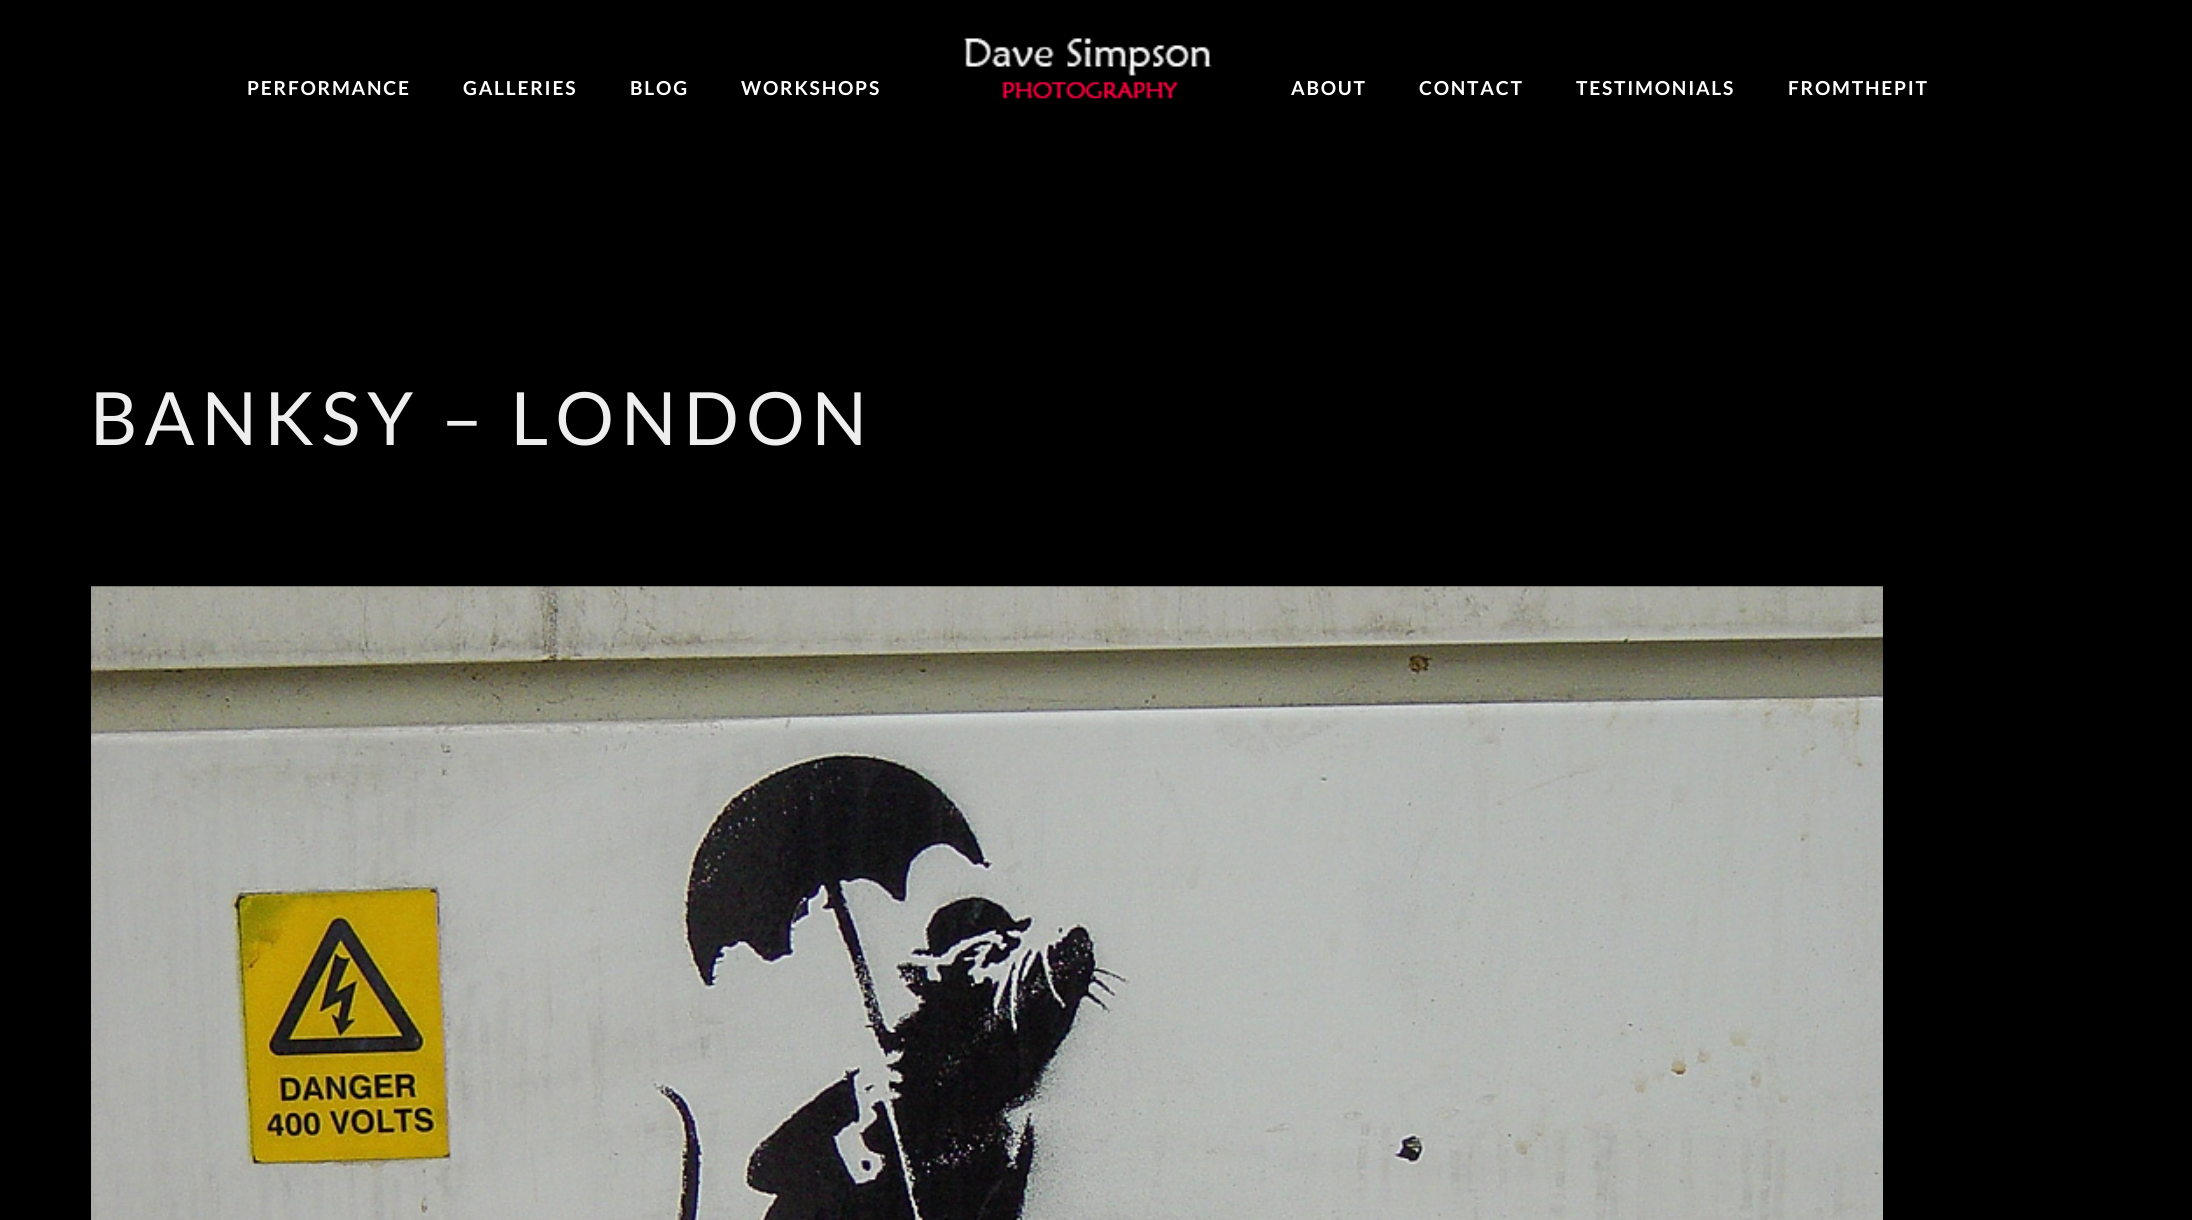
#include <cairo.h>
#include <math.h>
#include <stddef.h>

typedef struct { double x, y; const char *s; } line_t;

static void ink(cairo_t *ctx, unsigned color) {
    cairo_set_source_rgb(ctx, (color >> 16) / 255.0, (color >> 8 & 255) / 255.0, (color & 255) / 255.0);
}

static void write_spaced(cairo_t *ctx, double x, double y, const char *s, double letter, double word) {
    cairo_move_to(ctx, x, y);
    while (*s) {
        char ch[5] = {0};
        int n = 0;
        do ch[n++] = *s++; while ((*s & 0xC0) == 0x80);
        cairo_show_text(ctx, ch);
        cairo_rel_move_to(ctx, letter + word * (*ch == ' '), 0);
    }
}

static void paste(cairo_t *ctx, const char *path, double x, double y, double w, double h) {
    cairo_surface_t *image = cairo_image_surface_create_from_png(path);
    cairo_save(ctx);
    cairo_set_source_surface(ctx, image, x, y);
    cairo_rectangle(ctx, x, y, w, h);
    cairo_fill(ctx);
    cairo_restore(ctx);
    cairo_surface_destroy(image);
}

int main(void) {
    cairo_surface_t *surface = cairo_image_surface_create(CAIRO_FORMAT_RGB24, 2192, 1220);
    cairo_t *ctx = cairo_create(surface);
    cairo_font_options_t *options = cairo_font_options_create();
    cairo_font_options_set_hint_metrics(options, CAIRO_HINT_METRICS_OFF);
    cairo_font_options_set_hint_style(options, CAIRO_HINT_STYLE_NONE);
    cairo_set_font_options(ctx, options);
    cairo_set_miter_limit(ctx, 4);
    ink(ctx, 0x000000);
    cairo_paint(ctx);
    cairo_select_font_face(ctx, "Lato", CAIRO_FONT_SLANT_NORMAL, CAIRO_FONT_WEIGHT_BOLD);
    cairo_set_font_size(ctx, 19.25);
    ink(ctx, 0xFFFFFF);
    {
        static const line_t items[] = {
            {247, 95, "PERFORMANCE"},
            {463, 95, "GALLERIES"},
            {630, 95, "BLOG"},
            {741, 95, "WORKSHOPS"},
        };
        for (size_t i = 0; i < sizeof items / sizeof *items; i++) {
            write_spaced(ctx, items[i].x, items[i].y, items[i].s, 1.75, 0);
        }
    }
    paste(ctx, "media/1.png", 963, 38, 249, 61);
    {
        static const line_t items[] = {
            {1291, 95, "ABOUT"},
            {1419, 95, "CONTACT"},
            {1576, 95, "TESTIMONIALS"},
            {1788, 95, "FROMTHEPIT"},
        };
        for (size_t i = 0; i < sizeof items / sizeof *items; i++) {
            write_spaced(ctx, items[i].x, items[i].y, items[i].s, 1.75, 0);
        }
    }
    cairo_select_font_face(ctx, "Lato", CAIRO_FONT_SLANT_NORMAL, CAIRO_FONT_WEIGHT_NORMAL);
    cairo_set_font_size(ctx, 73.5);
    ink(ctx, 0xEEEEEE);
    write_spaced(ctx, 90, 445, "BANKSY – LONDON", 7, 0);
    paste(ctx, "media/2.png", 91, 586, 1792, 634);
    cairo_surface_write_to_png(surface, "image.png");
    cairo_font_options_destroy(options);
    cairo_destroy(ctx);
    cairo_surface_destroy(surface);
    return 0;
}
